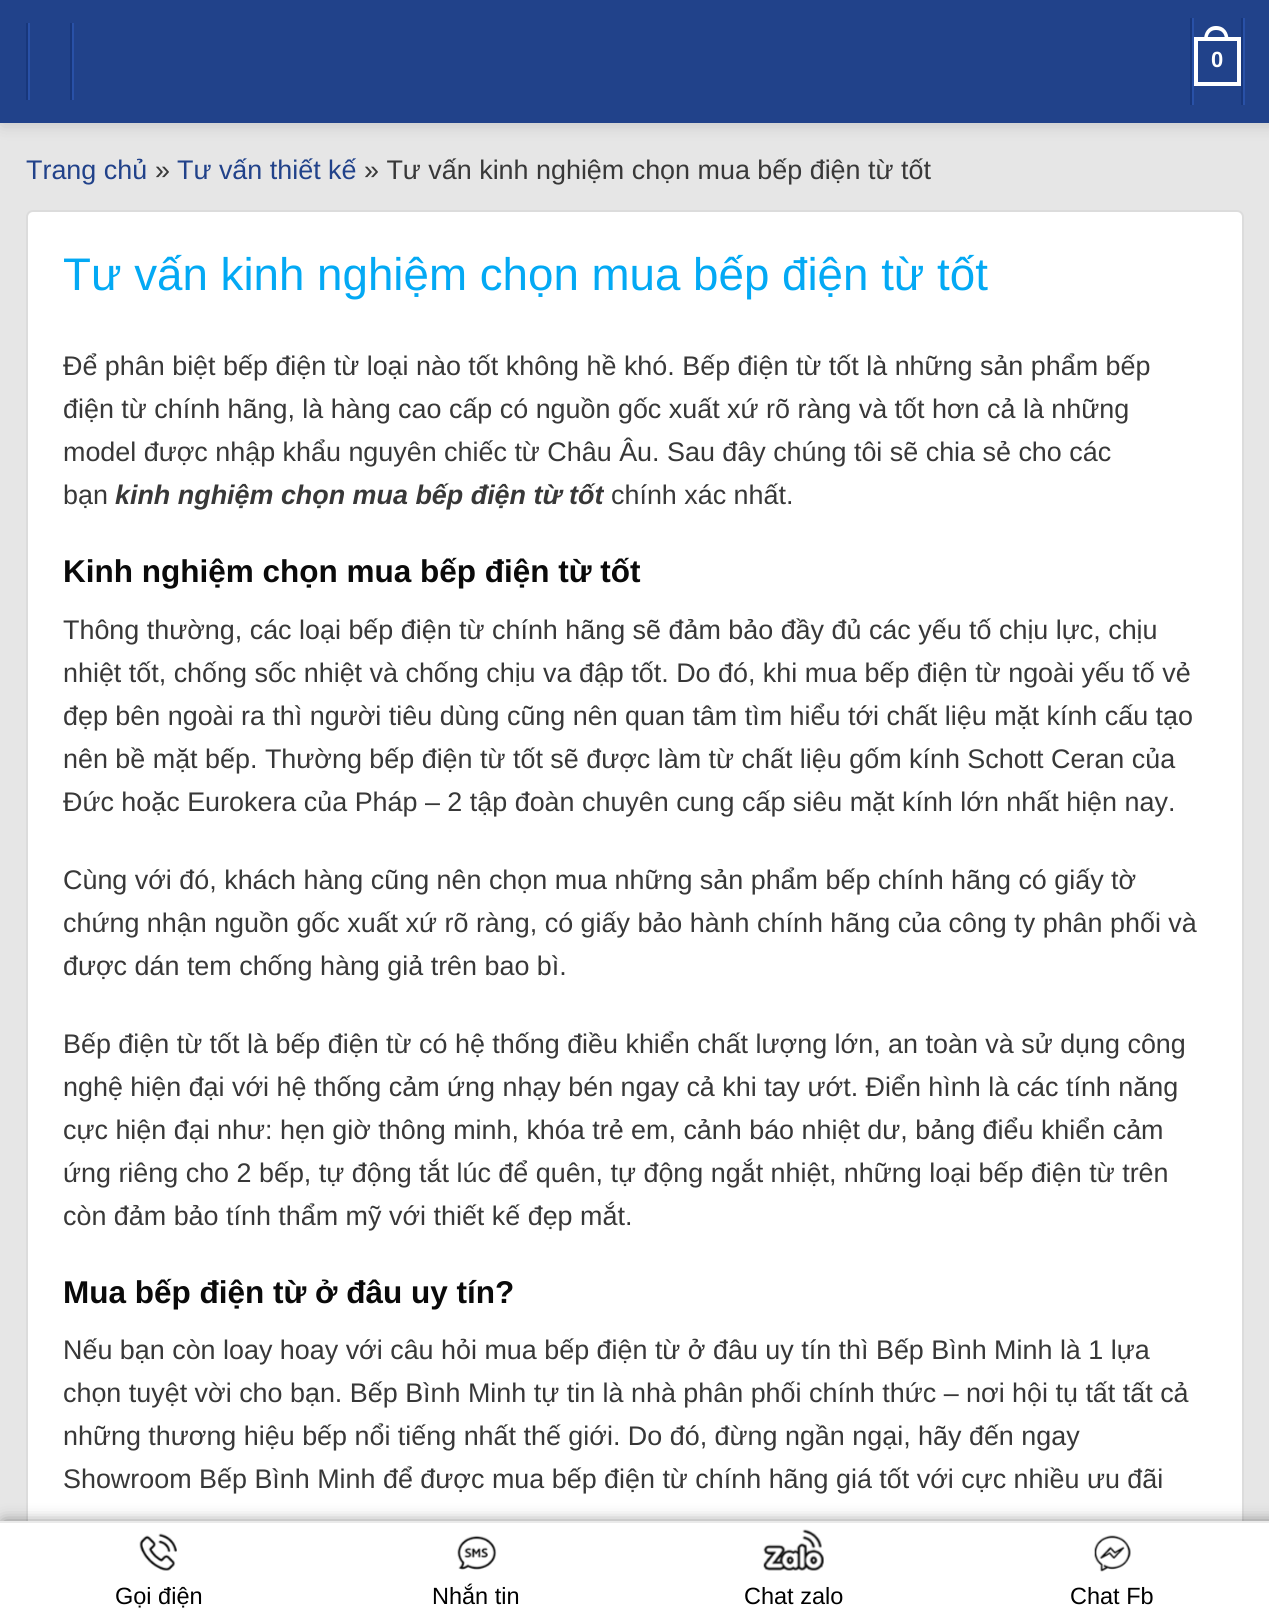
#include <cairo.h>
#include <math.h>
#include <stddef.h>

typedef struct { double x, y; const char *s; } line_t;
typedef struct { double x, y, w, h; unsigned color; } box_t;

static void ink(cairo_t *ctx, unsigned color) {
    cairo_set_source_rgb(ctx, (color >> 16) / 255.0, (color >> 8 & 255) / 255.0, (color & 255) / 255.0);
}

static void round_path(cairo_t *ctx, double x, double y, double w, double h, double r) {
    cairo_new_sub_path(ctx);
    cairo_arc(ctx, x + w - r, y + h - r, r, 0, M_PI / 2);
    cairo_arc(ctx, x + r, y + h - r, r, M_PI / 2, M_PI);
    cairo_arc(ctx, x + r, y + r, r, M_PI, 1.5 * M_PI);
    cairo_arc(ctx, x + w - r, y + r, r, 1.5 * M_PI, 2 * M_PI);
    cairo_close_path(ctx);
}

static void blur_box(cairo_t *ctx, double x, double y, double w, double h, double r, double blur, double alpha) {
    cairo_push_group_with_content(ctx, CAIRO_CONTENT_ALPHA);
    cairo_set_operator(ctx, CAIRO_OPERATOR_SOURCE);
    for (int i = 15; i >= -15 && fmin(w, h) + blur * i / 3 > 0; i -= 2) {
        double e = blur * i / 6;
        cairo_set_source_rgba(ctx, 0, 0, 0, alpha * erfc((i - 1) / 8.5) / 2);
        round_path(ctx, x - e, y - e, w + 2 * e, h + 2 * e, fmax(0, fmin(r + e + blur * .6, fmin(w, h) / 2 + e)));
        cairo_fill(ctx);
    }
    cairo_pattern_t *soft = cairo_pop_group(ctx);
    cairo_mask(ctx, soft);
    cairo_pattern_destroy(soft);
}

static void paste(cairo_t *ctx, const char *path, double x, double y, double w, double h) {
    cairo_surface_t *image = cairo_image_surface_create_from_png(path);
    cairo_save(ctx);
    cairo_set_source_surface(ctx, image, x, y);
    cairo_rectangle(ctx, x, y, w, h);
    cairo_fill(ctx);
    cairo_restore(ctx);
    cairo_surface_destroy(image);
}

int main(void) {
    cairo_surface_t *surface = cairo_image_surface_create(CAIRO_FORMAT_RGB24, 1269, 1615);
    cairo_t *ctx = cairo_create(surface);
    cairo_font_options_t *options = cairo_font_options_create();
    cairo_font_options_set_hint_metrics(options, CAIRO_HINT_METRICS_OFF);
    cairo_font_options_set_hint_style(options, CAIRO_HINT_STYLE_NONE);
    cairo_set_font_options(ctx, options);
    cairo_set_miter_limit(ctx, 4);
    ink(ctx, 0xE6E6E6);
    cairo_paint(ctx);
    ink(ctx, 0x000000);
    blur_box(ctx, 2, 2, 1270, 122, 0, 9, 0.15);
    {
        static const box_t items[] = {
            {0, 0, 1269, 123, 0x21428A},
            {72, 23, 2, 77, 0x2951A7},
            {26, 23, 2, 77, 0x18377B},
            {70, 23, 2, 77, 0x18377B},
            {28, 23, 2, 77, 0x2951A7},
            {1243, 18, 2, 87, 0x2951A7},
            {1190, 18, 2, 87, 0x18377B},
            {1241, 18, 2, 87, 0x18377B},
            {1192, 18, 2, 87, 0x2951A7},
        };
        for (size_t i = 0; i < sizeof items / sizeof *items; i++) {
            ink(ctx, items[i].color);
            cairo_rectangle(ctx, items[i].x, items[i].y, items[i].w, items[i].h);
            cairo_fill(ctx);
        }
    }
    cairo_rectangle(ctx, 1196, 39, 43, 45);
    ink(ctx, 0xFFFFFF);
    cairo_set_line_width(ctx, 4);
    cairo_stroke(ctx);
    cairo_set_fill_rule(ctx, CAIRO_FILL_RULE_EVEN_ODD);
    cairo_new_path(ctx);
    cairo_move_to(ctx, 1216, 26);
    cairo_curve_to(ctx, 1224.5, 26, 1228.5, 32.5, 1228.5, 40);
    cairo_line_to(ctx, 1204, 40);
    cairo_curve_to(ctx, 1204, 32.5, 1208, 26, 1216, 26);
    cairo_close_path(ctx);
    cairo_move_to(ctx, 1216, 30);
    cairo_curve_to(ctx, 1222.5, 30, 1225, 34.5, 1225, 40);
    cairo_line_to(ctx, 1207.5, 40);
    cairo_curve_to(ctx, 1207.5, 34.5, 1210, 30, 1216, 30);
    cairo_close_path(ctx);
    cairo_fill(ctx);
    cairo_select_font_face(ctx, "Liberation Sans", CAIRO_FONT_SLANT_NORMAL, CAIRO_FONT_WEIGHT_BOLD);
    cairo_set_font_size(ctx, 22);
    cairo_move_to(ctx, 1211, 67);
    cairo_show_text(ctx, "0");
    cairo_select_font_face(ctx, "Liberation Sans", CAIRO_FONT_SLANT_NORMAL, CAIRO_FONT_WEIGHT_NORMAL);
    cairo_set_font_size(ctx, 26.9);
    ink(ctx, 0x21428A);
    cairo_move_to(ctx, 26, 179);
    cairo_show_text(ctx, "Trang chủ");
    ink(ctx, 0x383838);
    cairo_move_to(ctx, 155, 179);
    cairo_show_text(ctx, "»");
    ink(ctx, 0x21428A);
    cairo_move_to(ctx, 177, 179);
    cairo_show_text(ctx, "Tư vấn thiết kế");
    ink(ctx, 0x383838);
    cairo_move_to(ctx, 364, 179);
    cairo_show_text(ctx, "» Tư vấn kinh nghiệm chọn mua bếp điện từ tốt");
    ink(ctx, 0xFFFFFF);
    round_path(ctx, 27, 211, 1216, 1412, 6);
    cairo_fill_preserve(ctx);
    ink(ctx, 0xDCDCDC);
    cairo_set_line_width(ctx, 2);
    cairo_stroke(ctx);
    cairo_set_font_size(ctx, 45.7);
    ink(ctx, 0x03A9F4);
    cairo_move_to(ctx, 63, 290);
    cairo_show_text(ctx, "Tư vấn kinh nghiệm chọn mua bếp điện từ tốt");
    cairo_set_font_size(ctx, 26.9);
    ink(ctx, 0x383838);
    {
        static const line_t items[] = {
            {63, 375, "Để phân biệt bếp điện từ loại nào tốt không hề khó. Bếp điện từ tốt là những sản phẩm bếp"},
            {63, 418, "điện từ chính hãng, là hàng cao cấp có nguồn gốc xuất xứ rõ ràng và tốt hơn cả là những"},
            {63, 461, "model được nhập khẩu nguyên chiếc từ Châu Âu. Sau đây chúng tôi sẽ chia sẻ cho các"},
            {63, 504, "bạn"},
        };
        for (size_t i = 0; i < sizeof items / sizeof *items; i++) {
            cairo_move_to(ctx, items[i].x, items[i].y);
            cairo_show_text(ctx, items[i].s);
        }
    }
    cairo_select_font_face(ctx, "Liberation Sans", CAIRO_FONT_SLANT_ITALIC, CAIRO_FONT_WEIGHT_BOLD);
    cairo_move_to(ctx, 115, 504);
    cairo_show_text(ctx, "kinh nghiệm chọn mua bếp điện từ tốt");
    cairo_select_font_face(ctx, "Liberation Sans", CAIRO_FONT_SLANT_NORMAL, CAIRO_FONT_WEIGHT_NORMAL);
    cairo_move_to(ctx, 611, 504);
    cairo_show_text(ctx, "chính xác nhất.");
    cairo_select_font_face(ctx, "Liberation Sans", CAIRO_FONT_SLANT_NORMAL, CAIRO_FONT_WEIGHT_BOLD);
    cairo_set_font_size(ctx, 31.5);
    ink(ctx, 0x0A0A0A);
    cairo_move_to(ctx, 63, 582);
    cairo_show_text(ctx, "Kinh nghiệm chọn mua bếp điện từ tốt");
    cairo_select_font_face(ctx, "Liberation Sans", CAIRO_FONT_SLANT_NORMAL, CAIRO_FONT_WEIGHT_NORMAL);
    cairo_set_font_size(ctx, 26.9);
    ink(ctx, 0x383838);
    {
        static const line_t items[] = {
            {63, 639, "Thông thường, các loại bếp điện từ chính hãng sẽ đảm bảo đầy đủ các yếu tố chịu lực, chịu"},
            {63, 682, "nhiệt tốt, chống sốc nhiệt và chống chịu va đập tốt. Do đó, khi mua bếp điện từ ngoài yếu tố vẻ"},
            {63, 725, "đẹp bên ngoài ra thì người tiêu dùng cũng nên quan tâm tìm hiểu tới chất liệu mặt kính cấu tạo"},
            {63, 768, "nên bề mặt bếp. Thường bếp điện từ tốt sẽ được làm từ chất liệu gốm kính Schott Ceran của"},
            {63, 811, "Đức hoặc Eurokera của Pháp – 2 tập đoàn chuyên cung cấp siêu mặt kính lớn nhất hiện nay."},
            {63, 889, "Cùng với đó, khách hàng cũng nên chọn mua những sản phẩm bếp chính hãng có giấy tờ"},
            {63, 932, "chứng nhận nguồn gốc xuất xứ rõ ràng, có giấy bảo hành chính hãng của công ty phân phối và"},
            {63, 975, "được dán tem chống hàng giả trên bao bì."},
            {63, 1053, "Bếp điện từ tốt là bếp điện từ có hệ thống điều khiển chất lượng lớn, an toàn và sử dụng công"},
            {63, 1096, "nghệ hiện đại với hệ thống cảm ứng nhạy bén ngay cả khi tay ướt. Điển hình là các tính năng"},
            {63, 1139, "cực hiện đại như: hẹn giờ thông minh, khóa trẻ em, cảnh báo nhiệt dư, bảng điểu khiển cảm"},
            {63, 1182, "ứng riêng cho 2 bếp, tự động tắt lúc để quên, tự động ngắt nhiệt, những loại bếp điện từ trên"},
            {63, 1225, "còn đảm bảo tính thẩm mỹ với thiết kế đẹp mắt."},
        };
        for (size_t i = 0; i < sizeof items / sizeof *items; i++) {
            cairo_move_to(ctx, items[i].x, items[i].y);
            cairo_show_text(ctx, items[i].s);
        }
    }
    cairo_select_font_face(ctx, "Liberation Sans", CAIRO_FONT_SLANT_NORMAL, CAIRO_FONT_WEIGHT_BOLD);
    cairo_set_font_size(ctx, 31.5);
    ink(ctx, 0x0A0A0A);
    cairo_move_to(ctx, 63, 1303);
    cairo_show_text(ctx, "Mua bếp điện từ ở đâu uy tín?");
    cairo_select_font_face(ctx, "Liberation Sans", CAIRO_FONT_SLANT_NORMAL, CAIRO_FONT_WEIGHT_NORMAL);
    cairo_set_font_size(ctx, 26.9);
    ink(ctx, 0x383838);
    {
        static const line_t items[] = {
            {63, 1359, "Nếu bạn còn loay hoay với câu hỏi mua bếp điện từ ở đâu uy tín thì Bếp Bình Minh là 1 lựa"},
            {63, 1402, "chọn tuyệt vời cho bạn. Bếp Bình Minh tự tin là nhà phân phối chính thức – nơi hội tụ tất tất cả"},
            {63, 1445, "những thương hiệu bếp nổi tiếng nhất thế giới. Do đó, đừng ngần ngại, hãy đến ngay"},
            {63, 1488, "Showroom Bếp Bình Minh để được mua bếp điện từ chính hãng giá tốt với cực nhiều ưu đãi"},
        };
        for (size_t i = 0; i < sizeof items / sizeof *items; i++) {
            cairo_move_to(ctx, items[i].x, items[i].y);
            cairo_show_text(ctx, items[i].s);
        }
    }
    ink(ctx, 0x000000);
    blur_box(ctx, 4, 1523, 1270, 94, 0, 8, 0.54);
    ink(ctx, 0xFFFFFF);
    cairo_rectangle(ctx, 0, 1523, 1269, 92);
    cairo_fill(ctx);
    ink(ctx, 0xEAEAEA);
    cairo_rectangle(ctx, 0, 1521, 1269, 2);
    cairo_fill(ctx);
    paste(ctx, "media/1.png", 139, 1533, 38, 38);
    cairo_set_font_size(ctx, 23.5);
    ink(ctx, 0x000000);
    cairo_move_to(ctx, 115, 1604);
    cairo_show_text(ctx, "Gọi điện");
    paste(ctx, "media/2.png", 457, 1535, 40, 35);
    cairo_move_to(ctx, 432, 1604);
    cairo_show_text(ctx, "Nhắn tin");
    paste(ctx, "media/3.png", 763, 1529, 61, 42);
    cairo_move_to(ctx, 744, 1604);
    cairo_show_text(ctx, "Chat zalo");
    paste(ctx, "media/4.png", 1094, 1535, 37, 37);
    cairo_move_to(ctx, 1070, 1604);
    cairo_show_text(ctx, "Chat Fb");
    cairo_surface_write_to_png(surface, "image.png");
    cairo_font_options_destroy(options);
    cairo_destroy(ctx);
    cairo_surface_destroy(surface);
    return 0;
}
